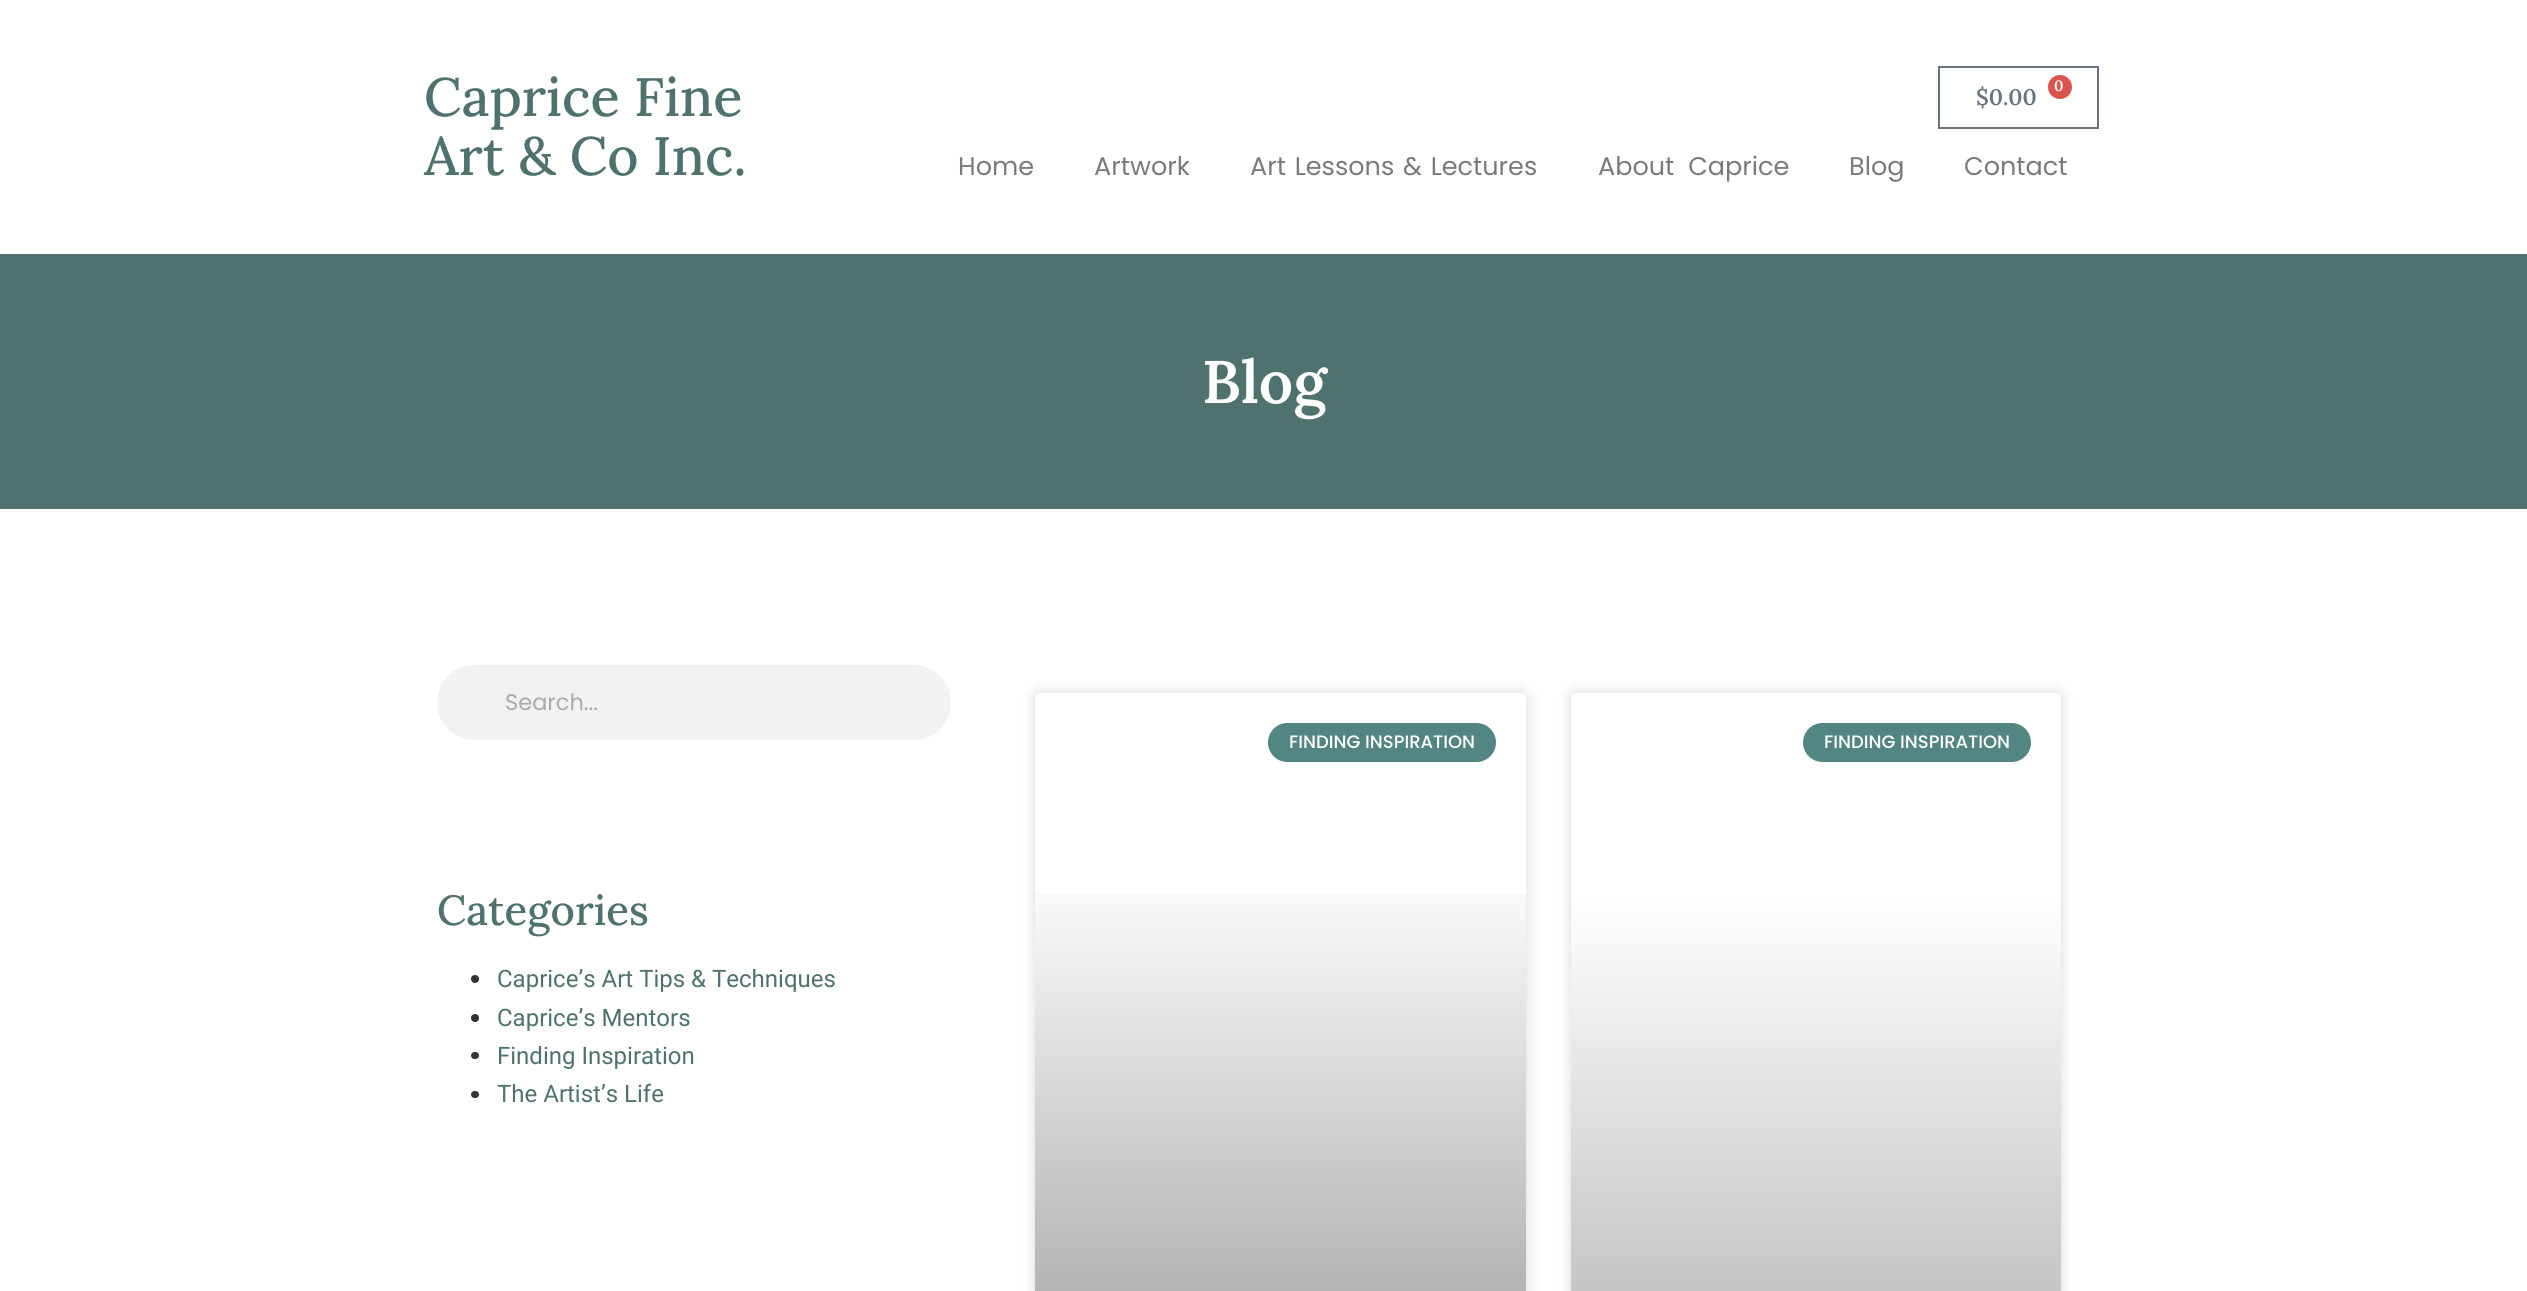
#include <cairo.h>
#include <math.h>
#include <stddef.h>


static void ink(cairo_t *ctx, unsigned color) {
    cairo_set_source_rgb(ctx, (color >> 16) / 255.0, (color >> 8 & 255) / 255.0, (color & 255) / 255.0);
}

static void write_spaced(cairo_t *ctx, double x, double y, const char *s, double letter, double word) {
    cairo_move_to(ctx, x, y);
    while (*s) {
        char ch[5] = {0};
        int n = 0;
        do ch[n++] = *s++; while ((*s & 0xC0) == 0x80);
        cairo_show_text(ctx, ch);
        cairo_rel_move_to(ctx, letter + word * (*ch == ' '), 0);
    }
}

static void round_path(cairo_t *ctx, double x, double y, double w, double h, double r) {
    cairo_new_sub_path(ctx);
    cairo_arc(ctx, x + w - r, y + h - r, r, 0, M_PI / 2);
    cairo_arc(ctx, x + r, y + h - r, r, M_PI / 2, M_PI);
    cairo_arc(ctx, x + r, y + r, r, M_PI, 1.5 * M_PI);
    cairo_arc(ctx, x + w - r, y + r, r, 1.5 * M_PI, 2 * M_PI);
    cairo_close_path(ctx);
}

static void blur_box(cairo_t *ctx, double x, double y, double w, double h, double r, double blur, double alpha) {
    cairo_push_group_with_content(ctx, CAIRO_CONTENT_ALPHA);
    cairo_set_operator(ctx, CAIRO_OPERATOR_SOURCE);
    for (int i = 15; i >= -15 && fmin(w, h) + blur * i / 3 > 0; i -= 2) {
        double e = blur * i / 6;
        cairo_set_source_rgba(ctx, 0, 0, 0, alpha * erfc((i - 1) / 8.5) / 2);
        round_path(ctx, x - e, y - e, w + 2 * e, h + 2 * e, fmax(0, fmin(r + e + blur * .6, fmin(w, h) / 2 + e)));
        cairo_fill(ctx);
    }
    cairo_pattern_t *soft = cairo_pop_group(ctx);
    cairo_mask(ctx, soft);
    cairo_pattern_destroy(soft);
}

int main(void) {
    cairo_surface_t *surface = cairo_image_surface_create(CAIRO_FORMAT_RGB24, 2527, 1291);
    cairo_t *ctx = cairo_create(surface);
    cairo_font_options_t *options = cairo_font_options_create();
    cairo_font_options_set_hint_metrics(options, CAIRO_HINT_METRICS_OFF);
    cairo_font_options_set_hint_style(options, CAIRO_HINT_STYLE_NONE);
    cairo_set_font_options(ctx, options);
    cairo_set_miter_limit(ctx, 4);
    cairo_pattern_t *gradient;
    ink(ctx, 0xFFFFFF);
    cairo_paint(ctx);
    cairo_select_font_face(ctx, "Lora Medium", CAIRO_FONT_SLANT_NORMAL, CAIRO_FONT_WEIGHT_NORMAL);
    cairo_set_font_size(ctx, 54);
    ink(ctx, 0x4F726F);
    cairo_move_to(ctx, 424, 116);
    cairo_show_text(ctx, "Caprice Fine");
    cairo_move_to(ctx, 424, 175);
    cairo_show_text(ctx, "Art & Co Inc.");
    cairo_rectangle(ctx, 1939, 67, 159, 61);
    ink(ctx, 0x69727D);
    cairo_stroke(ctx);
    cairo_select_font_face(ctx, "Lora SemiBold", CAIRO_FONT_SLANT_NORMAL, CAIRO_FONT_WEIGHT_NORMAL);
    cairo_set_font_size(ctx, 22.5);
    cairo_move_to(ctx, 1976, 105);
    cairo_show_text(ctx, "$0.00");
    ink(ctx, 0xD9534F);
    cairo_new_path(ctx);
    cairo_arc(ctx, 2060, 87, 12, 0, 2 * M_PI);
    cairo_fill(ctx);
    cairo_set_font_size(ctx, 15);
    ink(ctx, 0xFFFFFF);
    cairo_move_to(ctx, 2054, 91);
    cairo_show_text(ctx, "0");
    cairo_select_font_face(ctx, "Poppins", CAIRO_FONT_SLANT_NORMAL, CAIRO_FONT_WEIGHT_NORMAL);
    cairo_set_font_size(ctx, 25.5);
    ink(ctx, 0x7C7979);
    cairo_move_to(ctx, 958, 175);
    cairo_show_text(ctx, "Home");
    cairo_move_to(ctx, 1094, 175);
    cairo_show_text(ctx, "Artwork");
    write_spaced(ctx, 1250, 175, "Art Lessons & Lectures", 0, 2);
    write_spaced(ctx, 1598, 175, "About Caprice", 0, 7);
    cairo_move_to(ctx, 1849, 175);
    cairo_show_text(ctx, "Blog");
    cairo_move_to(ctx, 1964, 175);
    cairo_show_text(ctx, "Contact");
    ink(ctx, 0x4F726F);
    cairo_rectangle(ctx, 0, 254, 2527, 255);
    cairo_fill(ctx);
    cairo_select_font_face(ctx, "Lora SemiBold", CAIRO_FONT_SLANT_NORMAL, CAIRO_FONT_WEIGHT_NORMAL);
    cairo_set_font_size(ctx, 60);
    ink(ctx, 0xFFFFFF);
    cairo_move_to(ctx, 1202, 403);
    cairo_show_text(ctx, "Blog");
    ink(ctx, 0xF1F2F3);
    round_path(ctx, 437, 665, 514, 75, 37.5);
    cairo_fill(ctx);
    cairo_select_font_face(ctx, "Poppins", CAIRO_FONT_SLANT_NORMAL, CAIRO_FONT_WEIGHT_NORMAL);
    cairo_set_font_size(ctx, 22.5);
    ink(ctx, 0xABA9AA);
    cairo_move_to(ctx, 505, 710);
    cairo_show_text(ctx, "Search...");
    cairo_select_font_face(ctx, "Lora Medium", CAIRO_FONT_SLANT_NORMAL, CAIRO_FONT_WEIGHT_NORMAL);
    cairo_set_font_size(ctx, 42);
    ink(ctx, 0x4F726F);
    cairo_move_to(ctx, 437, 925);
    cairo_show_text(ctx, "Categories");
    ink(ctx, 0x333333);
    cairo_new_path(ctx);
    cairo_arc(ctx, 475, 979, 4, 0, 2 * M_PI);
    cairo_fill(ctx);
    cairo_select_font_face(ctx, "Roboto", CAIRO_FONT_SLANT_NORMAL, CAIRO_FONT_WEIGHT_NORMAL);
    cairo_set_font_size(ctx, 24);
    ink(ctx, 0x4F726F);
    cairo_move_to(ctx, 497, 987);
    cairo_show_text(ctx, "Caprice’s Art Tips & Techniques");
    ink(ctx, 0x333333);
    cairo_new_path(ctx);
    cairo_arc(ctx, 475, 1018, 4, 0, 2 * M_PI);
    cairo_fill(ctx);
    ink(ctx, 0x4F726F);
    cairo_move_to(ctx, 497, 1026);
    cairo_show_text(ctx, "Caprice’s Mentors");
    ink(ctx, 0x333333);
    round_path(ctx, 471, 1052, 8, 7, 3.5);
    cairo_fill(ctx);
    ink(ctx, 0x4F726F);
    cairo_move_to(ctx, 497, 1064);
    cairo_show_text(ctx, "Finding Inspiration");
    ink(ctx, 0x333333);
    round_path(ctx, 471, 1091, 8, 7, 3.5);
    cairo_fill(ctx);
    ink(ctx, 0x4F726F);
    cairo_move_to(ctx, 497, 1102);
    cairo_show_text(ctx, "The Artist’s Life");
    ink(ctx, 0x000000);
    blur_box(ctx, 1035, 693, 491, 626, 5, 7.5, 0.15);
    ink(ctx, 0xFFFFFF);
    round_path(ctx, 1035, 693, 491, 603, 5);
    cairo_fill(ctx);
    ink(ctx, 0x538682);
    round_path(ctx, 1268, 723, 228, 39, 19.5);
    cairo_fill(ctx);
    cairo_select_font_face(ctx, "Poppins Medium", CAIRO_FONT_SLANT_NORMAL, CAIRO_FONT_WEIGHT_NORMAL);
    cairo_set_font_size(ctx, 18);
    ink(ctx, 0xFFFFFF);
    cairo_move_to(ctx, 1289, 748);
    cairo_show_text(ctx, "FINDING INSPIRATION");
    gradient = cairo_pattern_create_linear(1280, 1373, 1280, 693);
    cairo_pattern_add_color_stop_rgba(gradient, 0, 0, 0, 0, 0.35);
    cairo_pattern_add_color_stop_rgba(gradient, 0.75, 0, 0, 0, 0);
    cairo_set_source(ctx, gradient);
    cairo_pattern_destroy(gradient);
    cairo_rectangle(ctx, 1035, 894, 491, 397);
    cairo_fill(ctx);
    ink(ctx, 0x000000);
    blur_box(ctx, 1571, 693, 490, 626, 5, 7.5, 0.15);
    gradient = cairo_pattern_create_linear(1816, 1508, 1816, 693);
    cairo_pattern_add_color_stop_rgba(gradient, 0, 0.651, 0.651, 0.651, 1);
    cairo_pattern_add_color_stop_rgba(gradient, 0.75, 1, 1, 1, 1);
    cairo_set_source(ctx, gradient);
    cairo_pattern_destroy(gradient);
    cairo_new_path(ctx);
    cairo_move_to(ctx, 1576, 693);
    cairo_line_to(ctx, 2056, 693);
    cairo_curve_to(ctx, 2059, 693, 2061, 695, 2061, 698);
    cairo_line_to(ctx, 2061, 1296);
    cairo_line_to(ctx, 1571, 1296);
    cairo_line_to(ctx, 1571, 698);
    cairo_curve_to(ctx, 1571, 695, 1573, 693, 1576, 693);
    cairo_close_path(ctx);
    cairo_fill(ctx);
    ink(ctx, 0x538682);
    round_path(ctx, 1803, 723, 228, 39, 19.5);
    cairo_fill(ctx);
    ink(ctx, 0xFFFFFF);
    cairo_move_to(ctx, 1824, 748);
    cairo_show_text(ctx, "FINDING INSPIRATION");
    cairo_surface_write_to_png(surface, "image.png");
    cairo_font_options_destroy(options);
    cairo_destroy(ctx);
    cairo_surface_destroy(surface);
    return 0;
}
